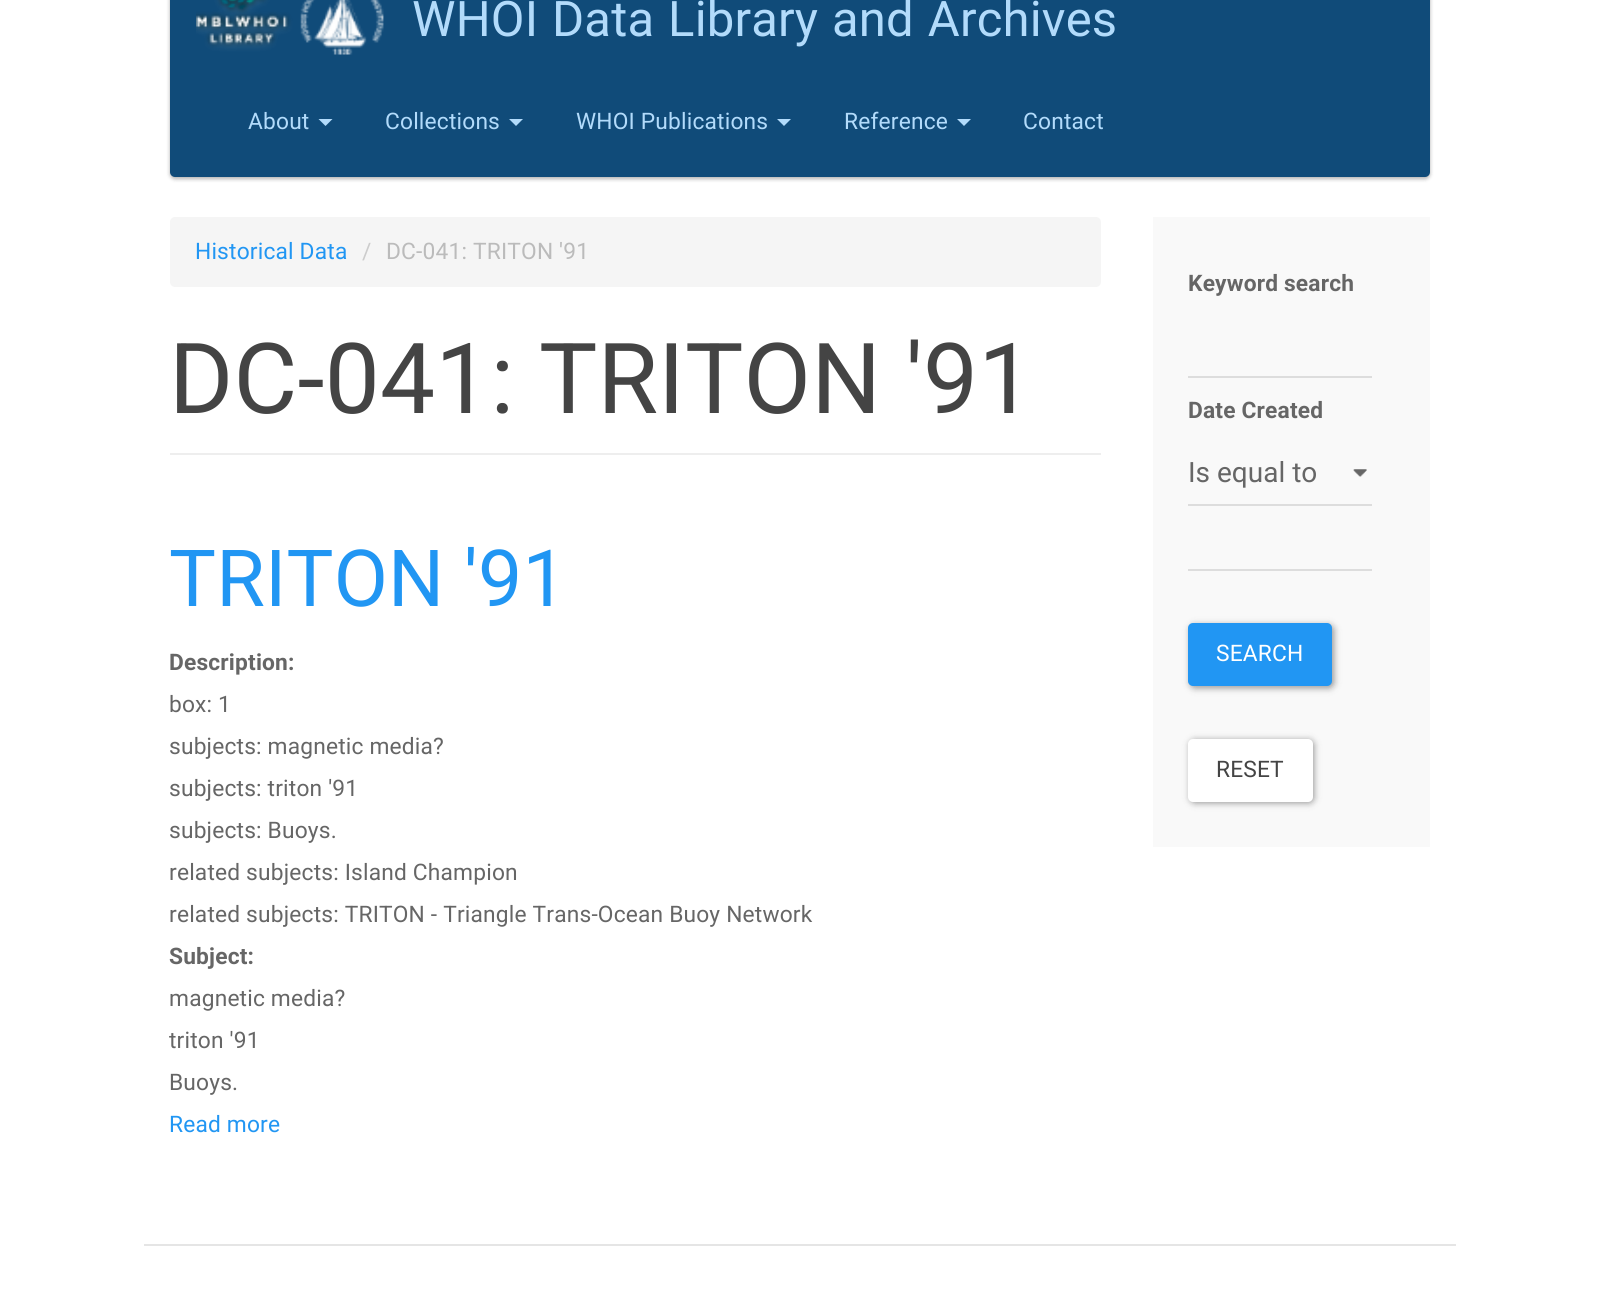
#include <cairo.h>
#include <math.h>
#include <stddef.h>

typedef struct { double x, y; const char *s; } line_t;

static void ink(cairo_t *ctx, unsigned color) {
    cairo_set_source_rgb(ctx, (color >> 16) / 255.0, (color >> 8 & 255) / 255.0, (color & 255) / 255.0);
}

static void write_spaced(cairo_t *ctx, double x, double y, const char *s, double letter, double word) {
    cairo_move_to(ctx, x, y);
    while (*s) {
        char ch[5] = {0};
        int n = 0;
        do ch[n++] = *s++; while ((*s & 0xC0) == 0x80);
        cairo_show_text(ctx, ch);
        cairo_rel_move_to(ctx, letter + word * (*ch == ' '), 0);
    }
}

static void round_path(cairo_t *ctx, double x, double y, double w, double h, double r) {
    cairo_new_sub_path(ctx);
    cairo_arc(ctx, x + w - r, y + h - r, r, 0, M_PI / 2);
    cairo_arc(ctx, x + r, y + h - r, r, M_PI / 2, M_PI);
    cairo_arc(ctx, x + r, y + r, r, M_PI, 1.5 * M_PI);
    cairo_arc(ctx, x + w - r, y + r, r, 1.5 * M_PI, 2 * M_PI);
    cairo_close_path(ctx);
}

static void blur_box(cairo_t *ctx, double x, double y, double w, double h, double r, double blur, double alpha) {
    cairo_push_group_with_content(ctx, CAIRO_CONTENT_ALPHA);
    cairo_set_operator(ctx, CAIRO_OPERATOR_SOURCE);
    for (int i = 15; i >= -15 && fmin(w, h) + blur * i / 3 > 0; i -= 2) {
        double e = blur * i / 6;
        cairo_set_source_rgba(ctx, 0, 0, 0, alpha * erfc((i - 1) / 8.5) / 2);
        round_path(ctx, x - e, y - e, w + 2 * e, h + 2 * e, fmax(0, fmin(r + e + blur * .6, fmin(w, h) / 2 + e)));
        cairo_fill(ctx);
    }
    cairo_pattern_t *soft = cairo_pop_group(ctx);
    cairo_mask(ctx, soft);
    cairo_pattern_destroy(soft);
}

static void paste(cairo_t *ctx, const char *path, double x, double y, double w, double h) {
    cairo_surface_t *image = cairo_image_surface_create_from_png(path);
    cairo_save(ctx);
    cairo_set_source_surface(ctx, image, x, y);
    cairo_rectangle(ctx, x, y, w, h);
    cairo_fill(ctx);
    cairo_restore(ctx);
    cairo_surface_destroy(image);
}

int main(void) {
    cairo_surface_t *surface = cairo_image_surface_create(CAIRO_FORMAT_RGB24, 1597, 1301);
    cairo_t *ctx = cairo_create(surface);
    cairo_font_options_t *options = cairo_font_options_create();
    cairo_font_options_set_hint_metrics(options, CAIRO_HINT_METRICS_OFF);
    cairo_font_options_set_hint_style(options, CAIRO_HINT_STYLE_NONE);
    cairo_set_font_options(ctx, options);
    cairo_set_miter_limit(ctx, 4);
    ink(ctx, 0xFFFFFF);
    cairo_paint(ctx);
    ink(ctx, 0x000000);
    blur_box(ctx, 170, -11, 1260, 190, 5, 2, 0.3);
    ink(ctx, 0x104B79);
    round_path(ctx, 170, -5, 1260, 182, 5);
    cairo_fill(ctx);
    paste(ctx, "media/1.png", 196, 0, 188, 55);
    cairo_select_font_face(ctx, "Roboto", CAIRO_FONT_SLANT_NORMAL, CAIRO_FONT_WEIGHT_NORMAL);
    cairo_set_font_size(ctx, 49);
    ink(ctx, 0xB2DBFB);
    write_spaced(ctx, 412, 36, "WHOI Data Library and Archives", 0.18, 1.5);
    cairo_set_font_size(ctx, 22.75);
    write_spaced(ctx, 248, 129, "About", 0.18, 0);
    cairo_new_path(ctx);
    cairo_move_to(ctx, 318.5, 119);
    cairo_line_to(ctx, 332.5, 119);
    cairo_line_to(ctx, 325.5, 126);
    cairo_close_path(ctx);
    cairo_fill(ctx);
    write_spaced(ctx, 385, 129, "Collections", 0.18, 0);
    cairo_new_path(ctx);
    cairo_move_to(ctx, 509, 119);
    cairo_line_to(ctx, 523, 119);
    cairo_line_to(ctx, 516, 126);
    cairo_close_path(ctx);
    cairo_fill(ctx);
    write_spaced(ctx, 576, 129, "WHOI Publications", 0.18, 0);
    cairo_new_path(ctx);
    cairo_move_to(ctx, 777, 119);
    cairo_line_to(ctx, 791, 119);
    cairo_line_to(ctx, 784, 126);
    cairo_close_path(ctx);
    cairo_fill(ctx);
    write_spaced(ctx, 844, 129, "Reference", 0.18, 0);
    cairo_new_path(ctx);
    cairo_move_to(ctx, 957, 119);
    cairo_line_to(ctx, 971, 119);
    cairo_line_to(ctx, 964, 126);
    cairo_close_path(ctx);
    cairo_fill(ctx);
    write_spaced(ctx, 1023, 129, "Contact", 0.18, 0);
    ink(ctx, 0xF5F5F5);
    round_path(ctx, 170, 217, 931, 70, 5);
    cairo_fill(ctx);
    ink(ctx, 0x2196F3);
    write_spaced(ctx, 195, 259, "Historical Data", 0.18, 0);
    ink(ctx, 0xCCCCCC);
    write_spaced(ctx, 362, 259, "/", 0.18, 0);
    ink(ctx, 0xBBBBBB);
    write_spaced(ctx, 386, 259, "DC-041: TRITON '91", 0.18, 0);
    ink(ctx, 0xEEEEEE);
    cairo_rectangle(ctx, 170, 453, 931, 2);
    cairo_fill(ctx);
    cairo_set_font_size(ctx, 98);
    ink(ctx, 0x444444);
    write_spaced(ctx, 169, 413, "DC-041: TRITON '91", 0.18, 0);
    cairo_set_font_size(ctx, 78.75);
    ink(ctx, 0x2196F3);
    write_spaced(ctx, 169, 606, "TRITON '91", 0.18, 0);
    cairo_select_font_face(ctx, "Roboto", CAIRO_FONT_SLANT_NORMAL, CAIRO_FONT_WEIGHT_BOLD);
    cairo_set_font_size(ctx, 22.75);
    ink(ctx, 0x666666);
    write_spaced(ctx, 169, 670, "Description:", 0.18, 0);
    cairo_select_font_face(ctx, "Roboto", CAIRO_FONT_SLANT_NORMAL, CAIRO_FONT_WEIGHT_NORMAL);
    {
        static const line_t items[] = {
            {169, 712, "box: 1"},
            {169, 754, "subjects: magnetic media?"},
            {169, 796, "subjects: triton '91"},
            {169, 838, "subjects: Buoys."},
            {169, 880, "related subjects: Island Champion"},
            {169, 922, "related subjects: TRITON - Triangle Trans-Ocean Buoy Network"},
        };
        for (size_t i = 0; i < sizeof items / sizeof *items; i++) {
            write_spaced(ctx, items[i].x, items[i].y, items[i].s, 0.18, 0);
        }
    }
    cairo_select_font_face(ctx, "Roboto", CAIRO_FONT_SLANT_NORMAL, CAIRO_FONT_WEIGHT_BOLD);
    write_spaced(ctx, 169, 964, "Subject:", 0.18, 0);
    cairo_select_font_face(ctx, "Roboto", CAIRO_FONT_SLANT_NORMAL, CAIRO_FONT_WEIGHT_NORMAL);
    {
        static const line_t items[] = {
            {169, 1006, "magnetic media?"},
            {169, 1048, "triton '91"},
            {169, 1090, "Buoys."},
        };
        for (size_t i = 0; i < sizeof items / sizeof *items; i++) {
            write_spaced(ctx, items[i].x, items[i].y, items[i].s, 0.18, 0);
        }
    }
    ink(ctx, 0x2196F3);
    write_spaced(ctx, 169, 1132, "Read more", 0.18, 0);
    ink(ctx, 0xF9F9F9);
    cairo_rectangle(ctx, 1153, 217, 277, 630);
    cairo_fill(ctx);
    cairo_select_font_face(ctx, "Roboto", CAIRO_FONT_SLANT_NORMAL, CAIRO_FONT_WEIGHT_BOLD);
    ink(ctx, 0x666666);
    write_spaced(ctx, 1188, 291, "Keyword search", 0.18, 0);
    ink(ctx, 0xDDDDDD);
    cairo_rectangle(ctx, 1188, 376, 184, 2);
    cairo_fill(ctx);
    ink(ctx, 0x666666);
    write_spaced(ctx, 1188, 418, "Date Created", 0.18, 0);
    paste(ctx, "media/2.png", 1353, 469, 14, 8);
    ink(ctx, 0xDDDDDD);
    cairo_rectangle(ctx, 1188, 504, 184, 2);
    cairo_fill(ctx);
    cairo_select_font_face(ctx, "Roboto", CAIRO_FONT_SLANT_NORMAL, CAIRO_FONT_WEIGHT_NORMAL);
    cairo_set_font_size(ctx, 28);
    ink(ctx, 0x666666);
    cairo_move_to(ctx, 1188, 482);
    cairo_show_text(ctx, "Is equal to");
    ink(ctx, 0xDDDDDD);
    cairo_rectangle(ctx, 1188, 569, 184, 2);
    cairo_fill(ctx);
    ink(ctx, 0x000000);
    blur_box(ctx, 1190, 625, 144, 63, 5, 3.5, 0.4);
    ink(ctx, 0x2196F3);
    round_path(ctx, 1188, 623, 144, 63, 5);
    cairo_fill(ctx);
    cairo_set_font_size(ctx, 22.75);
    ink(ctx, 0xFFFFFF);
    write_spaced(ctx, 1216, 661, "SEARCH", 0.18, 0);
    ink(ctx, 0x000000);
    blur_box(ctx, 1190, 740, 124, 63, 5, 3.5, 0.4);
    ink(ctx, 0xFFFFFF);
    round_path(ctx, 1188, 739, 125, 63, 5);
    cairo_fill(ctx);
    ink(ctx, 0x444444);
    write_spaced(ctx, 1216, 777, "RESET", 0.18, 0);
    ink(ctx, 0xE5E5E5);
    cairo_rectangle(ctx, 144, 1244, 1312, 2);
    cairo_fill(ctx);
    cairo_surface_write_to_png(surface, "image.png");
    cairo_font_options_destroy(options);
    cairo_destroy(ctx);
    cairo_surface_destroy(surface);
    return 0;
}
